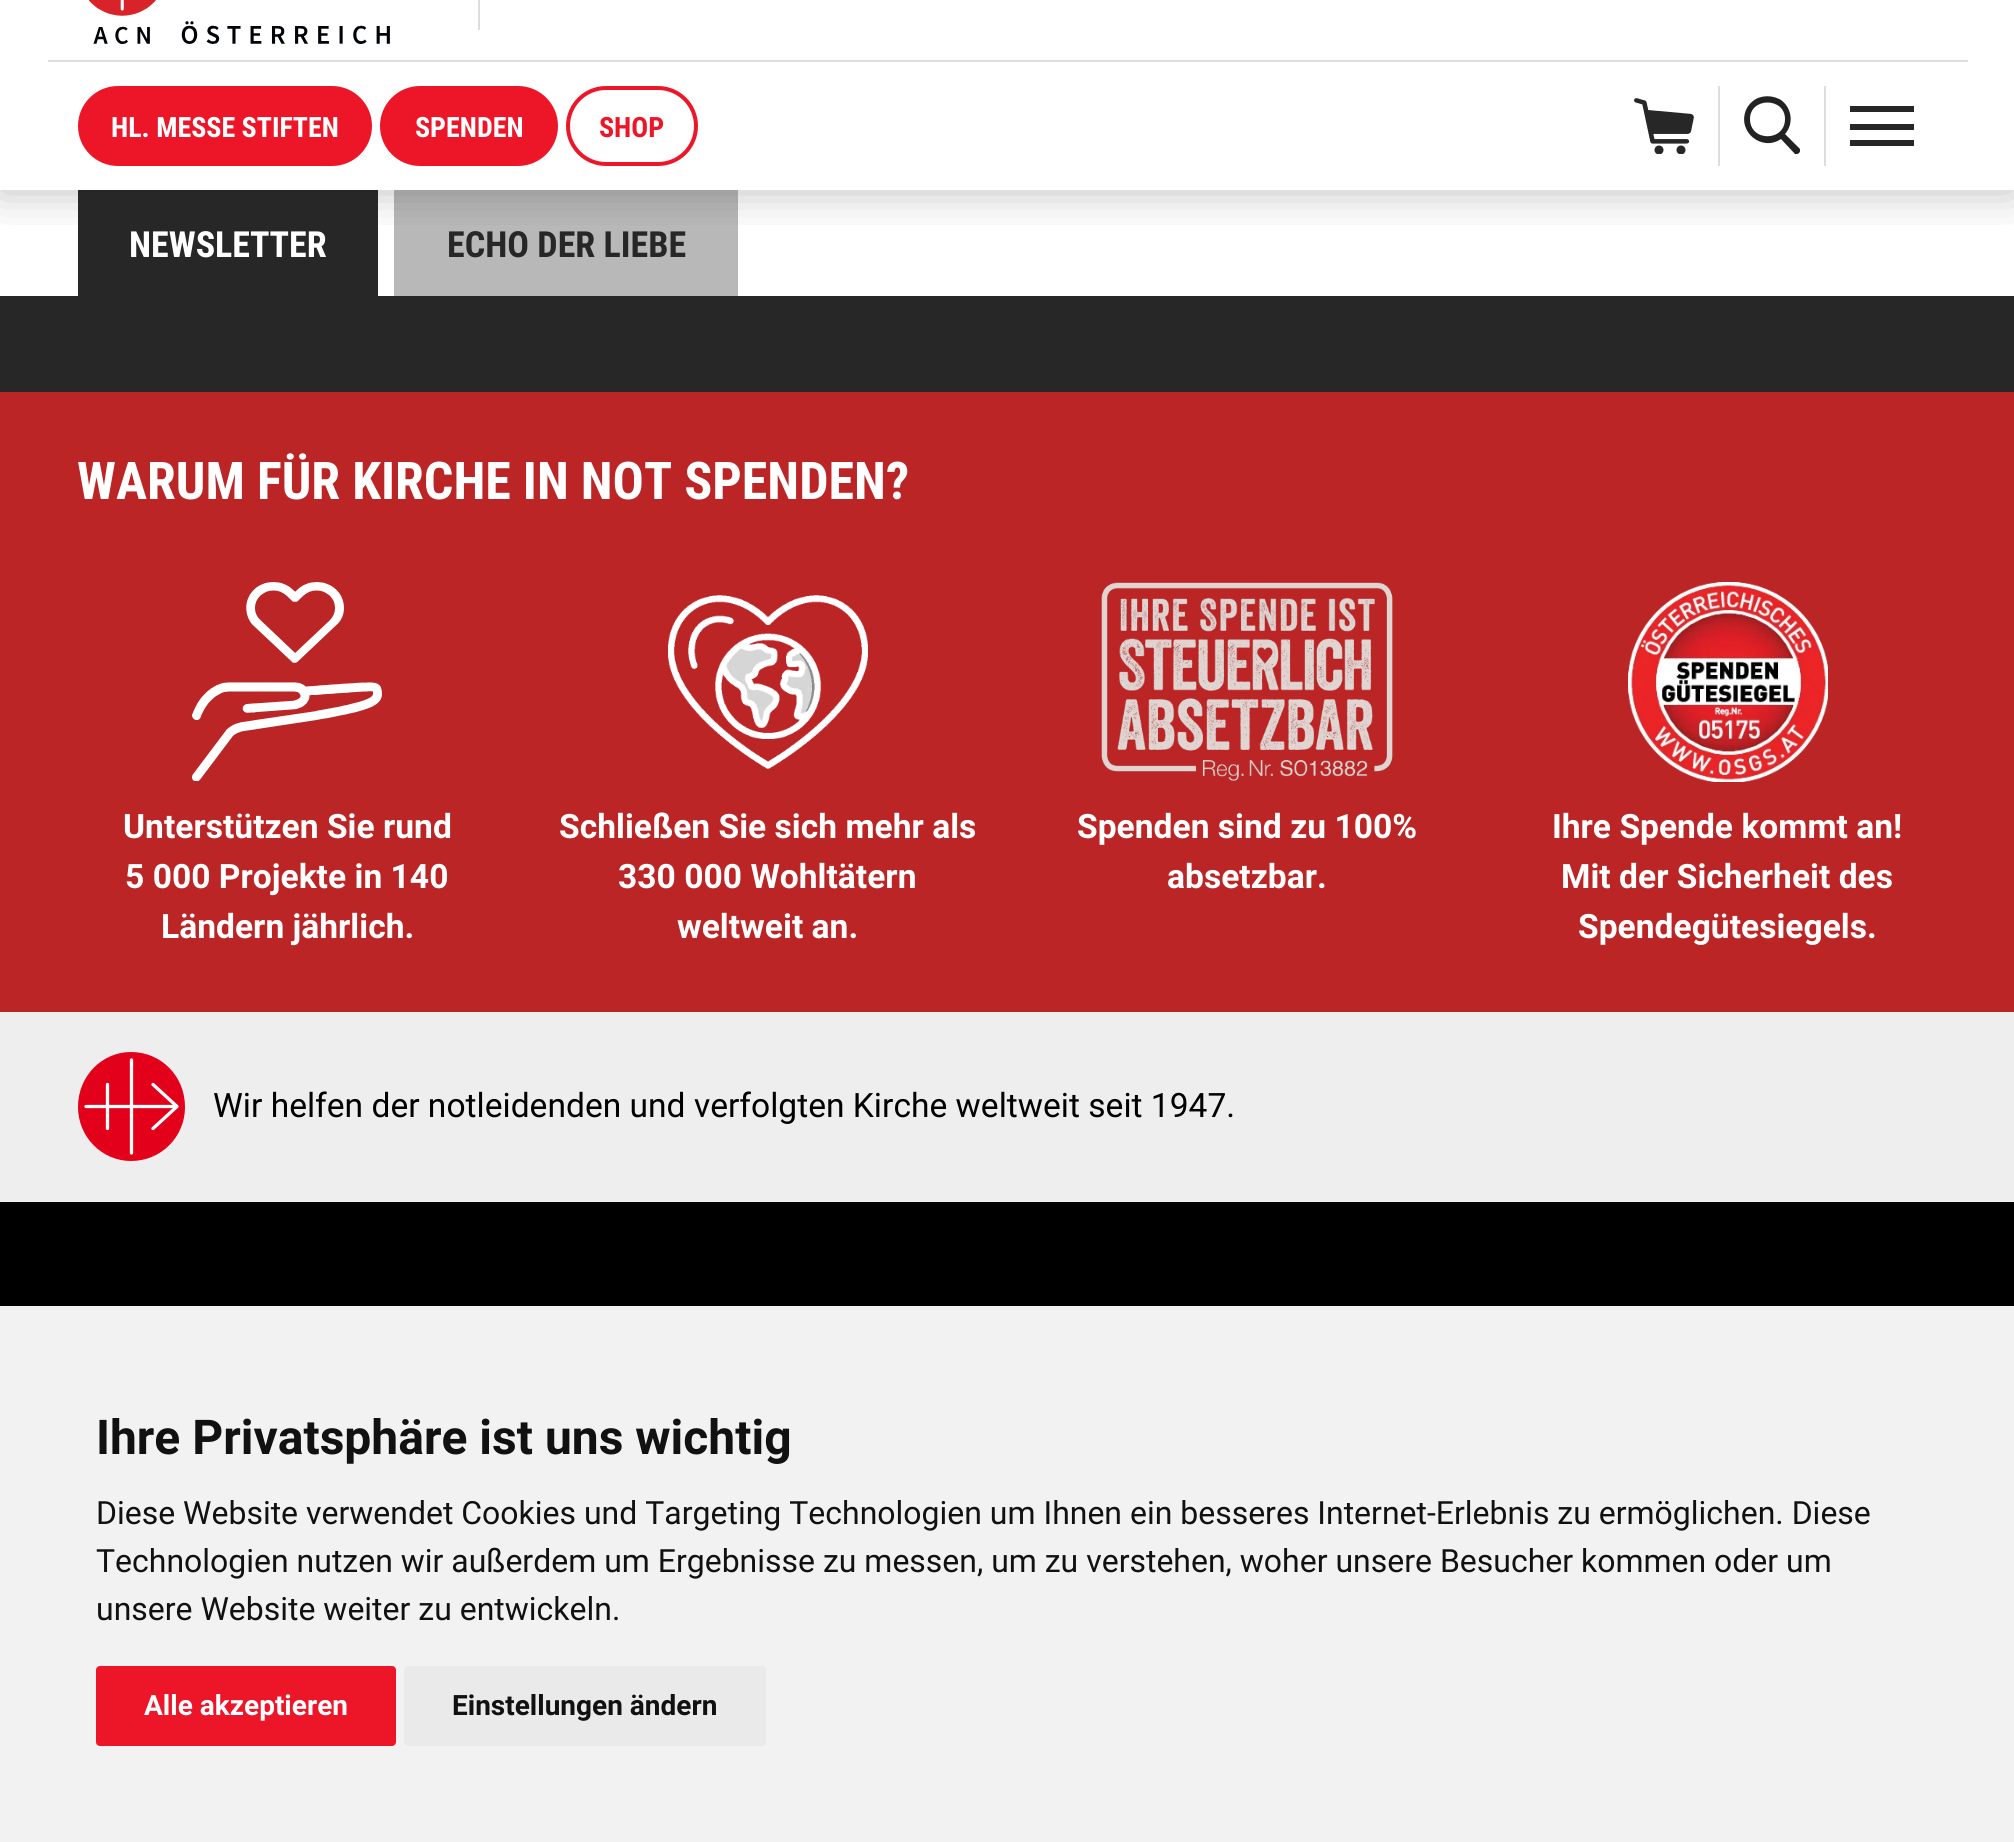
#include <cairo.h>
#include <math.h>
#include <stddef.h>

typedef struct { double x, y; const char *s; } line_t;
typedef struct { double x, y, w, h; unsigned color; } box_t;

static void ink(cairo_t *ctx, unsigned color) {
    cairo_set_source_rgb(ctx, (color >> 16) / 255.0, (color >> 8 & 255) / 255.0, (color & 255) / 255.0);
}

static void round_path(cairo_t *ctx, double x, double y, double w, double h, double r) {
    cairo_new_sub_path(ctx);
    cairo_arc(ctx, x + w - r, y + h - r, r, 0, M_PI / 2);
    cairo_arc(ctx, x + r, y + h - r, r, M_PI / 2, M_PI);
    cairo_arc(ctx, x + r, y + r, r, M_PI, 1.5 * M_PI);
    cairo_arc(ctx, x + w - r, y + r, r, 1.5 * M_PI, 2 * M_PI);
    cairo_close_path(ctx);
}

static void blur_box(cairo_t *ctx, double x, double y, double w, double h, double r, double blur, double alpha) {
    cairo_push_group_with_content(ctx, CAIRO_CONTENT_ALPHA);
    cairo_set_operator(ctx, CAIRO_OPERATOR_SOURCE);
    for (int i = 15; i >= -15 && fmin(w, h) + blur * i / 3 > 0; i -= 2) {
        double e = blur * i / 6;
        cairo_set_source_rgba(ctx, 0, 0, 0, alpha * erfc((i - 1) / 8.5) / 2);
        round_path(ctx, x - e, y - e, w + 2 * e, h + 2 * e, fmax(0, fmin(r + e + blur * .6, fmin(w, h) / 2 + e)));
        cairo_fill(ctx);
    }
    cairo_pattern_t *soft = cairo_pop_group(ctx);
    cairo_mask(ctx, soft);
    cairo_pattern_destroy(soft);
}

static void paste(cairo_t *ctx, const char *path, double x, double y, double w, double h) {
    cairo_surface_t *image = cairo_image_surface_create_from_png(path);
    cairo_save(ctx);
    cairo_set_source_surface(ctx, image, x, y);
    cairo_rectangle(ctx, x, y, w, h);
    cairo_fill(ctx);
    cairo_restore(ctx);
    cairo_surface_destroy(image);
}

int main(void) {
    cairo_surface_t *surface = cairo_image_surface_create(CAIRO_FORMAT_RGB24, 2014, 1842);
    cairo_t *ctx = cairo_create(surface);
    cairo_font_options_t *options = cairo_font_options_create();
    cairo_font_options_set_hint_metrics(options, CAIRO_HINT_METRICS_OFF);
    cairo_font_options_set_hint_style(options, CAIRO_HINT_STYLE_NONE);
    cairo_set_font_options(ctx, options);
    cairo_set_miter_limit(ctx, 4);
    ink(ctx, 0xFFFFFF);
    cairo_paint(ctx);
    ink(ctx, 0x272727);
    cairo_rectangle(ctx, 78, 190, 300, 106);
    cairo_fill(ctx);
    ink(ctx, 0xB8B8B8);
    cairo_rectangle(ctx, 394, 190, 344, 106);
    cairo_fill(ctx);
    cairo_save(ctx);
    cairo_rectangle(ctx, 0, 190, 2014, 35);
    cairo_clip(ctx);
    ink(ctx, 0x272727);
    blur_box(ctx, 0, -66, 2014, 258, 0, 22, 0.3);
    cairo_restore(ctx);
    ink(ctx, 0xDDDDDD);
    cairo_rectangle(ctx, 48, 60, 1920, 2);
    cairo_fill(ctx);
    paste(ctx, "media/1.png", 88, 0, 302, 44);
    cairo_rectangle(ctx, 478, 0, 2, 30);
    cairo_fill(ctx);
    ink(ctx, 0xED1629);
    round_path(ctx, 80, 88, 290, 76, 38);
    cairo_fill_preserve(ctx);
    cairo_set_line_width(ctx, 4);
    cairo_stroke(ctx);
    cairo_select_font_face(ctx, "Roboto Condensed", CAIRO_FONT_SLANT_NORMAL, CAIRO_FONT_WEIGHT_BOLD);
    cairo_set_font_size(ctx, 28);
    ink(ctx, 0xFFFFFF);
    cairo_move_to(ctx, 111, 137);
    cairo_show_text(ctx, "HL. MESSE STIFTEN");
    ink(ctx, 0xED1629);
    round_path(ctx, 382, 88, 174, 76, 38);
    cairo_fill_preserve(ctx);
    cairo_stroke(ctx);
    ink(ctx, 0xFFFFFF);
    cairo_move_to(ctx, 415, 137);
    cairo_show_text(ctx, "SPENDEN");
    round_path(ctx, 568, 88, 128, 76, 38);
    ink(ctx, 0xED1629);
    cairo_stroke(ctx);
    cairo_move_to(ctx, 599, 137);
    cairo_show_text(ctx, "SHOP");
    paste(ctx, "media/2.png", 1634, 98, 60, 56);
    ink(ctx, 0xDDDDDD);
    cairo_rectangle(ctx, 1718, 86, 2, 80);
    cairo_fill(ctx);
    cairo_save(ctx);
    cairo_rectangle(ctx, 1744, 96, 56, 58);
    cairo_clip(ctx);
    ink(ctx, 0x222222);
    cairo_set_fill_rule(ctx, CAIRO_FILL_RULE_EVEN_ODD);
    cairo_new_path(ctx);
    cairo_move_to(ctx, 1785, 119);
    cairo_curve_to(ctx, 1785, 142, 1750, 142, 1750, 119);
    cairo_curve_to(ctx, 1750, 97, 1785, 97, 1785, 119);
    cairo_close_path(ctx);
    cairo_move_to(ctx, 1785, 134);
    cairo_curve_to(ctx, 1794, 124, 1792, 108, 1781, 100);
    cairo_curve_to(ctx, 1774, 96, 1766, 95, 1758, 98);
    cairo_curve_to(ctx, 1753, 100, 1748, 105, 1746, 110);
    cairo_curve_to(ctx, 1737, 132, 1762, 152, 1781, 139);
    cairo_line_to(ctx, 1795, 154);
    cairo_curve_to(ctx, 1798, 155, 1801, 152, 1800, 149);
    cairo_close_path(ctx);
    cairo_fill(ctx);
    cairo_restore(ctx);
    {
        static const box_t items[] = {
            {1824, 86, 2, 80, 0xDDDDDD},
            {1850, 106, 64, 6, 0x272727},
            {1850, 124, 64, 6, 0x272727},
            {1850, 140, 64, 6, 0x272727},
            {0, 296, 2014, 96, 0x272727},
        };
        for (size_t i = 0; i < sizeof items / sizeof *items; i++) {
            ink(ctx, items[i].color);
            cairo_rectangle(ctx, items[i].x, items[i].y, items[i].w, items[i].h);
            cairo_fill(ctx);
        }
    }
    cairo_set_font_size(ctx, 36);
    ink(ctx, 0xFFFFFF);
    cairo_move_to(ctx, 129, 257);
    cairo_show_text(ctx, "NEWSLETTER");
    ink(ctx, 0x272727);
    cairo_move_to(ctx, 447, 257);
    cairo_show_text(ctx, "ECHO DER LIEBE");
    ink(ctx, 0xBB2525);
    cairo_rectangle(ctx, 0, 392, 2014, 620);
    cairo_fill(ctx);
    cairo_set_font_size(ctx, 52);
    ink(ctx, 0xFFFFFF);
    cairo_move_to(ctx, 77, 499);
    cairo_show_text(ctx, "WARUM FÜR KIRCHE IN NOT SPENDEN?");
    paste(ctx, "media/3.png", 192, 582, 190, 199);
    cairo_select_font_face(ctx, "Roboto", CAIRO_FONT_SLANT_NORMAL, CAIRO_FONT_WEIGHT_BOLD);
    cairo_set_font_size(ctx, 33.6);
    {
        static const line_t items[] = {
            {123, 838, "Unterstützen Sie rund"},
            {125, 888, "5 000 Projekte in 140"},
            {161, 938, "Ländern jährlich."},
        };
        for (size_t i = 0; i < sizeof items / sizeof *items; i++) {
            cairo_move_to(ctx, items[i].x, items[i].y);
            cairo_show_text(ctx, items[i].s);
        }
    }
    paste(ctx, "media/4.png", 668, 595, 200, 174);
    {
        static const line_t items[] = {
            {559, 838, "Schließen Sie sich mehr als"},
            {618, 888, "330 000 Wohltätern"},
            {677, 938, "weltweit an."},
        };
        for (size_t i = 0; i < sizeof items / sizeof *items; i++) {
            cairo_move_to(ctx, items[i].x, items[i].y);
            cairo_show_text(ctx, items[i].s);
        }
    }
    paste(ctx, "media/5.png", 1101, 582, 292, 199);
    cairo_move_to(ctx, 1077, 838);
    cairo_show_text(ctx, "Spenden sind zu 100%");
    cairo_move_to(ctx, 1167, 888);
    cairo_show_text(ctx, "absetzbar.");
    paste(ctx, "media/6.png", 1628, 582, 200, 200);
    {
        static const line_t items[] = {
            {1552, 838, "Ihre Spende kommt an!"},
            {1561, 888, "Mit der Sicherheit des"},
            {1578, 938, "Spendegütesiegels."},
        };
        for (size_t i = 0; i < sizeof items / sizeof *items; i++) {
            cairo_move_to(ctx, items[i].x, items[i].y);
            cairo_show_text(ctx, items[i].s);
        }
    }
    ink(ctx, 0xEEEEEF);
    cairo_rectangle(ctx, 0, 1012, 2014, 190);
    cairo_fill(ctx);
    ink(ctx, 0xE3001B);
    cairo_set_fill_rule(ctx, CAIRO_FILL_RULE_EVEN_ODD);
    cairo_new_path(ctx);
    cairo_move_to(ctx, 131, 1052);
    cairo_curve_to(ctx, 161, 1052, 185, 1076, 185, 1107);
    cairo_curve_to(ctx, 185, 1137, 161, 1161, 131, 1161);
    cairo_curve_to(ctx, 102, 1161, 78, 1137, 78, 1107);
    cairo_curve_to(ctx, 78, 1076, 102, 1052, 131, 1052);
    cairo_close_path(ctx);
    cairo_fill(ctx);
    cairo_new_path(ctx);
    cairo_move_to(ctx, 107.5, 1084.5);
    cairo_line_to(ctx, 107.5, 1128.5);
    ink(ctx, 0xFFFFFF);
    cairo_set_line_width(ctx, 3.3);
    cairo_set_line_cap(ctx, CAIRO_LINE_CAP_ROUND);
    cairo_set_line_join(ctx, CAIRO_LINE_JOIN_ROUND);
    cairo_stroke(ctx);
    cairo_new_path(ctx);
    cairo_move_to(ctx, 153, 1128.5);
    cairo_line_to(ctx, 177, 1106.5);
    cairo_line_to(ctx, 153, 1084.5);
    cairo_stroke(ctx);
    cairo_new_path(ctx);
    cairo_move_to(ctx, 86, 1106.5);
    cairo_line_to(ctx, 176.5, 1106.5);
    cairo_stroke(ctx);
    cairo_new_path(ctx);
    cairo_move_to(ctx, 131.5, 1060);
    cairo_line_to(ctx, 131.5, 1153);
    cairo_stroke(ctx);
    cairo_select_font_face(ctx, "Roboto", CAIRO_FONT_SLANT_NORMAL, CAIRO_FONT_WEIGHT_NORMAL);
    ink(ctx, 0x000000);
    cairo_move_to(ctx, 213, 1117);
    cairo_show_text(ctx, "Wir helfen der notleidenden und verfolgten Kirche weltweit seit 1947.");
    cairo_rectangle(ctx, 0, 1202, 2014, 104);
    cairo_fill(ctx);
    ink(ctx, 0xF2F2F2);
    cairo_rectangle(ctx, 0, 1306, 2014, 536);
    cairo_fill(ctx);
    cairo_select_font_face(ctx, "Roboto", CAIRO_FONT_SLANT_NORMAL, CAIRO_FONT_WEIGHT_BOLD);
    cairo_set_font_size(ctx, 48);
    ink(ctx, 0x111111);
    cairo_move_to(ctx, 96, 1454);
    cairo_show_text(ctx, "Ihre Privatsphäre ist uns wichtig");
    cairo_select_font_face(ctx, "Roboto", CAIRO_FONT_SLANT_NORMAL, CAIRO_FONT_WEIGHT_NORMAL);
    cairo_set_font_size(ctx, 32);
    {
        static const line_t items[] = {
            {96, 1524, "Diese Website verwendet Cookies und Targeting Technologien um Ihnen ein besseres Internet-Erlebnis zu ermöglichen. Diese"},
            {96, 1572, "Technologien nutzen wir außerdem um Ergebnisse zu messen, um zu verstehen, woher unsere Besucher kommen oder um"},
            {96, 1620, "unsere Website weiter zu entwickeln."},
        };
        for (size_t i = 0; i < sizeof items / sizeof *items; i++) {
            cairo_move_to(ctx, items[i].x, items[i].y);
            cairo_show_text(ctx, items[i].s);
        }
    }
    ink(ctx, 0xED1629);
    round_path(ctx, 96, 1666, 300, 80, 4);
    cairo_fill(ctx);
    cairo_select_font_face(ctx, "Roboto", CAIRO_FONT_SLANT_NORMAL, CAIRO_FONT_WEIGHT_BOLD);
    cairo_set_font_size(ctx, 28);
    ink(ctx, 0xFFFFFF);
    cairo_move_to(ctx, 144, 1715);
    cairo_show_text(ctx, "Alle akzeptieren");
    ink(ctx, 0xEAEAEA);
    round_path(ctx, 404, 1666, 362, 80, 4);
    cairo_fill(ctx);
    ink(ctx, 0x111111);
    cairo_move_to(ctx, 452, 1715);
    cairo_show_text(ctx, "Einstellungen ändern");
    cairo_surface_write_to_png(surface, "image.png");
    cairo_font_options_destroy(options);
    cairo_destroy(ctx);
    cairo_surface_destroy(surface);
    return 0;
}
